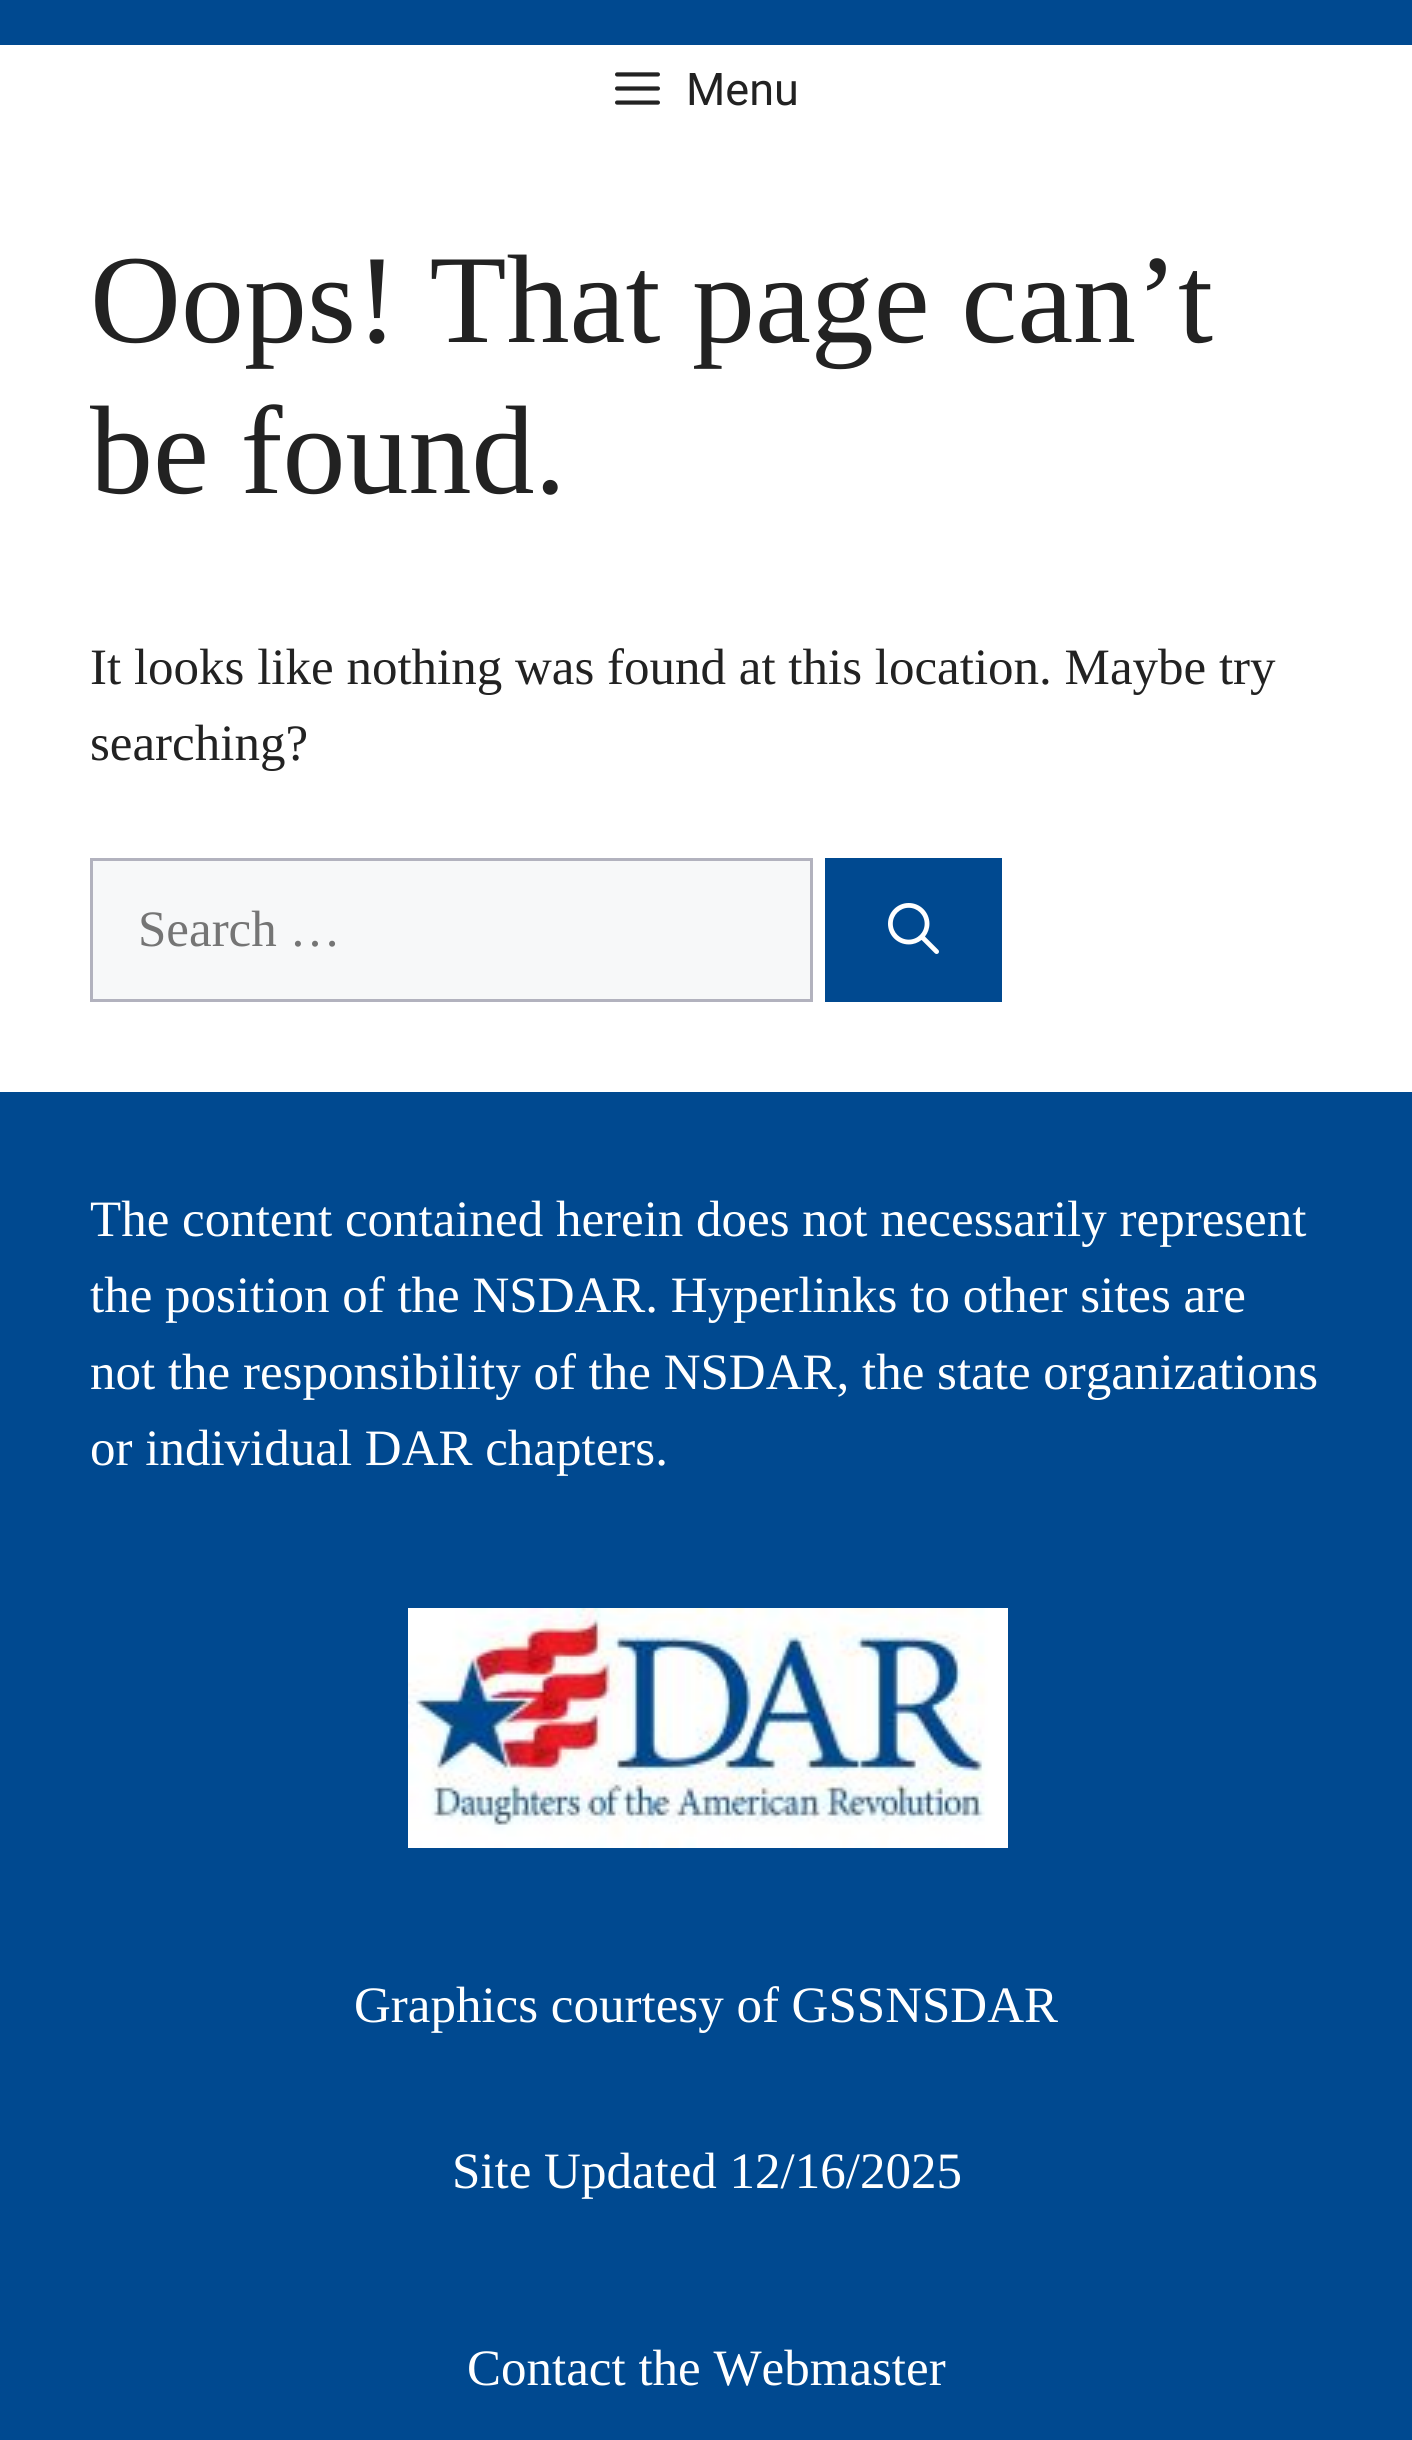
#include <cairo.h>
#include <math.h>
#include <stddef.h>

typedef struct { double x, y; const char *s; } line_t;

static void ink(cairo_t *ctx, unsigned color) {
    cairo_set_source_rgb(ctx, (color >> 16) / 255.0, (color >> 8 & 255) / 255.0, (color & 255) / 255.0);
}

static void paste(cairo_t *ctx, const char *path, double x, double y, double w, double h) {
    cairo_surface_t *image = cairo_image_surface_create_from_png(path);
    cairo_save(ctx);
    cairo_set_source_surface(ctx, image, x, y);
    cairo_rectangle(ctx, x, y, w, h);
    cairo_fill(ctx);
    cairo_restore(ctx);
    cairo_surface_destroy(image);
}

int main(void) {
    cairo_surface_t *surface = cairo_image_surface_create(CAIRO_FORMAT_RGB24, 1412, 2440);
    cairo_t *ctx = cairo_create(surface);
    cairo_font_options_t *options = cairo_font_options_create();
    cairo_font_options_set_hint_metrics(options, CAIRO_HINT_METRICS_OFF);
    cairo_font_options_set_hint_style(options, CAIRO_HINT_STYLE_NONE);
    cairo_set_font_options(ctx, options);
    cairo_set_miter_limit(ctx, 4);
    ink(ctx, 0xFFFFFF);
    cairo_paint(ctx);
    ink(ctx, 0x004990);
    cairo_rectangle(ctx, 0, 0, 1412, 45);
    cairo_fill(ctx);
    paste(ctx, "media/1.png", 615, 72, 45, 33);
    cairo_select_font_face(ctx, "Roboto", CAIRO_FONT_SLANT_NORMAL, CAIRO_FONT_WEIGHT_NORMAL);
    cairo_set_font_size(ctx, 45);
    ink(ctx, 0x222222);
    cairo_move_to(ctx, 686, 105);
    cairo_show_text(ctx, "Menu");
    cairo_select_font_face(ctx, "Liberation Serif", CAIRO_FONT_SLANT_NORMAL, CAIRO_FONT_WEIGHT_NORMAL);
    cairo_set_font_size(ctx, 126);
    cairo_move_to(ctx, 90, 342);
    cairo_show_text(ctx, "Oops! That page can’t");
    cairo_move_to(ctx, 90, 493);
    cairo_show_text(ctx, "be found.");
    cairo_set_font_size(ctx, 51);
    cairo_move_to(ctx, 90, 684);
    cairo_show_text(ctx, "It looks like nothing was found at this location. Maybe try");
    cairo_move_to(ctx, 90, 760);
    cairo_show_text(ctx, "searching?");
    ink(ctx, 0xF7F8F9);
    cairo_rectangle(ctx, 91.5, 859.5, 720, 141);
    cairo_fill_preserve(ctx);
    ink(ctx, 0xB2B2BE);
    cairo_set_line_width(ctx, 3);
    cairo_stroke(ctx);
    ink(ctx, 0x757575);
    cairo_move_to(ctx, 138, 946);
    cairo_show_text(ctx, "Search …");
    ink(ctx, 0x004990);
    cairo_rectangle(ctx, 825, 858, 177, 144);
    cairo_fill(ctx);
    paste(ctx, "media/2.png", 888, 903, 51, 51);
    cairo_rectangle(ctx, 0, 1092, 1412, 1348);
    cairo_fill(ctx);
    ink(ctx, 0xFFFFFF);
    {
        static const line_t items[] = {
            {90, 1236, "The content contained herein does not necessarily represent"},
            {90, 1312, "the position of the NSDAR. Hyperlinks to other sites are"},
            {90, 1389, "not the responsibility of the NSDAR, the state organizations"},
            {90, 1465, "or individual DAR chapters."},
        };
        for (size_t i = 0; i < sizeof items / sizeof *items; i++) {
            cairo_move_to(ctx, items[i].x, items[i].y);
            cairo_show_text(ctx, items[i].s);
        }
    }
    paste(ctx, "media/3.png", 408, 1608, 600, 240);
    {
        static const line_t items[] = {
            {354, 2022, "Graphics courtesy of GSSNSDAR"},
            {452, 2188, "Site Updated 12/16/2025"},
            {467, 2385, "Contact the Webmaster"},
        };
        for (size_t i = 0; i < sizeof items / sizeof *items; i++) {
            cairo_move_to(ctx, items[i].x, items[i].y);
            cairo_show_text(ctx, items[i].s);
        }
    }
    cairo_surface_write_to_png(surface, "image.png");
    cairo_font_options_destroy(options);
    cairo_destroy(ctx);
    cairo_surface_destroy(surface);
    return 0;
}
